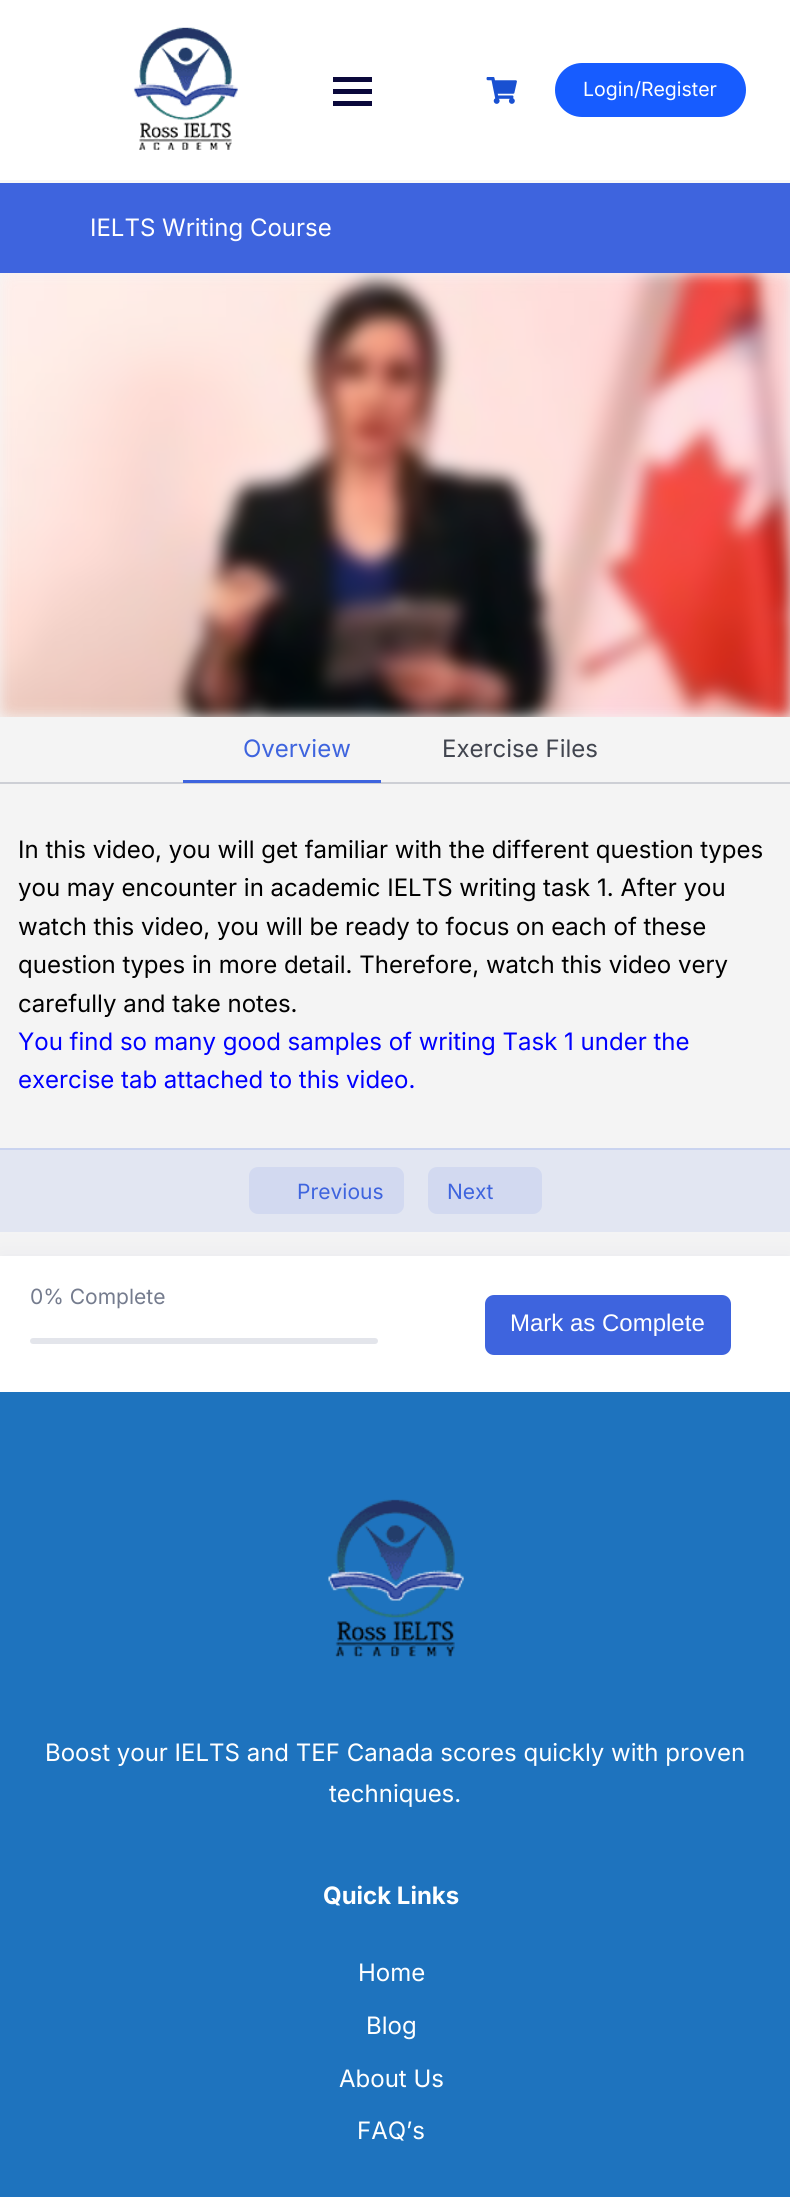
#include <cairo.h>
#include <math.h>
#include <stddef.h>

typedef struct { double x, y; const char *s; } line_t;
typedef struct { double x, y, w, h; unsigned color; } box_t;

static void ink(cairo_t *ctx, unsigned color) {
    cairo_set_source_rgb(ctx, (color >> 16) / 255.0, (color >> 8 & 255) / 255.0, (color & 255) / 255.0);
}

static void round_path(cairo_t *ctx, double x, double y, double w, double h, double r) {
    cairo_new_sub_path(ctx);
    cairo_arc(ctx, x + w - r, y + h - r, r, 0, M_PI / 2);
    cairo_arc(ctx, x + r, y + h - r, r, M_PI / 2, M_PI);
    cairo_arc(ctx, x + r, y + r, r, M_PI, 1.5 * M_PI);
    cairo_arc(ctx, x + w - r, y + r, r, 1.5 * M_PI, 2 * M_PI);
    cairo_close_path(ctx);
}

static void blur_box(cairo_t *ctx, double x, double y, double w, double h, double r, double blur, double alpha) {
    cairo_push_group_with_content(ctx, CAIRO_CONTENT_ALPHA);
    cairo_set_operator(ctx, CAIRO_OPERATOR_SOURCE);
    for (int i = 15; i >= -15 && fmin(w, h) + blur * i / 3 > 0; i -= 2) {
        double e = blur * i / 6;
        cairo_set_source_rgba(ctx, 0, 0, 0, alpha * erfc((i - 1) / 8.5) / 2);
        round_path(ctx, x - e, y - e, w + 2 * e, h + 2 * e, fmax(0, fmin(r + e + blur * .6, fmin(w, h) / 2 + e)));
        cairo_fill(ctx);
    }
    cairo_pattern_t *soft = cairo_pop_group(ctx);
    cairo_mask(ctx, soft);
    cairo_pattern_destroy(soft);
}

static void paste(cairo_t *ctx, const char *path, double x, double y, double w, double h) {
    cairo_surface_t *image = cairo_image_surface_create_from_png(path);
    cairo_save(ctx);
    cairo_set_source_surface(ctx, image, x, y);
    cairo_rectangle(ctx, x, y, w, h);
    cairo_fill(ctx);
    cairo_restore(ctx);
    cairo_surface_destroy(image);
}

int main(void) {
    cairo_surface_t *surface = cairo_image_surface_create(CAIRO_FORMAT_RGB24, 790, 2197);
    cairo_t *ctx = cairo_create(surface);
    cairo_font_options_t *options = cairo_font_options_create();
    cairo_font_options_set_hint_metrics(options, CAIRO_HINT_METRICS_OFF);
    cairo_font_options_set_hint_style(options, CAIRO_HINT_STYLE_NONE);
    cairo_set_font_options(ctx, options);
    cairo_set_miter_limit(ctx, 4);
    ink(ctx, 0xF4F4F4);
    cairo_paint(ctx);
    ink(ctx, 0xFFFFFF);
    cairo_rectangle(ctx, 0, 0, 790, 180);
    cairo_fill(ctx);
    ink(ctx, 0xF8F8F8);
    cairo_rectangle(ctx, 0, 180, 790, 3);
    cairo_fill(ctx);
    paste(ctx, "media/1.png", 133, 27, 106, 123);
    {
        static const box_t items[] = {
            {333, 89, 39, 5, 0x0A083B},
            {333, 77, 39, 5, 0x0A083B},
            {333, 101, 39, 5, 0x0A083B},
        };
        for (size_t i = 0; i < sizeof items / sizeof *items; i++) {
            ink(ctx, items[i].color);
            cairo_rectangle(ctx, items[i].x, items[i].y, items[i].w, items[i].h);
            cairo_fill(ctx);
        }
    }
    paste(ctx, "media/2.png", 486, 77, 31, 27);
    ink(ctx, 0x175CFF);
    round_path(ctx, 556, 64, 189, 52, 26);
    cairo_fill_preserve(ctx);
    cairo_stroke(ctx);
    cairo_select_font_face(ctx, "Inter", CAIRO_FONT_SLANT_NORMAL, CAIRO_FONT_WEIGHT_NORMAL);
    cairo_set_font_size(ctx, 19.5);
    ink(ctx, 0xFFFFFF);
    cairo_move_to(ctx, 583, 96);
    cairo_show_text(ctx, "Login/Register");
    ink(ctx, 0x3E64DE);
    cairo_rectangle(ctx, 0, 183, 790, 90);
    cairo_fill(ctx);
    cairo_set_font_size(ctx, 24);
    ink(ctx, 0xFFFFFF);
    cairo_move_to(ctx, 90, 236);
    cairo_show_text(ctx, "IELTS Writing Course");
    paste(ctx, "media/3.png", 0, 273, 790, 444);
    ink(ctx, 0xCDCFD5);
    cairo_rectangle(ctx, 0, 782, 790, 2);
    cairo_fill(ctx);
    ink(ctx, 0x3E64DE);
    cairo_rectangle(ctx, 183, 780, 198, 3);
    cairo_fill(ctx);
    cairo_move_to(ctx, 243, 757);
    cairo_show_text(ctx, "Overview");
    ink(ctx, 0x41454F);
    cairo_move_to(ctx, 442, 757);
    cairo_show_text(ctx, "Exercise Files");
    ink(ctx, 0x000000);
    {
        static const line_t items[] = {
            {18, 858, "In this video, you will get familiar with the different question types"},
            {18, 896, "you may encounter in academic IELTS writing task 1. After you"},
            {18, 935, "watch this video, you will be ready to focus on each of these"},
            {18, 973, "question types in more detail. Therefore, watch this video very"},
            {18, 1012, "carefully and take notes."},
        };
        for (size_t i = 0; i < sizeof items / sizeof *items; i++) {
            cairo_move_to(ctx, items[i].x, items[i].y);
            cairo_show_text(ctx, items[i].s);
        }
    }
    ink(ctx, 0x0000FF);
    cairo_move_to(ctx, 18, 1050);
    cairo_show_text(ctx, "You find so many good samples of writing Task 1 under the");
    cairo_move_to(ctx, 18, 1088);
    cairo_show_text(ctx, "exercise tab attached to this video.");
    ink(ctx, 0xB0B6D1);
    blur_box(ctx, 0, 1256, 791, 136, 0, 12, 0.18);
    ink(ctx, 0xE2E6F2);
    cairo_rectangle(ctx, 0, 1150, 790, 82);
    cairo_fill(ctx);
    ink(ctx, 0xC9D3EF);
    cairo_rectangle(ctx, 0, 1148, 790, 2);
    cairo_fill(ctx);
    ink(ctx, 0xD2D9F0);
    round_path(ctx, 249, 1167, 155, 47, 9);
    cairo_fill(ctx);
    cairo_set_font_size(ctx, 21);
    ink(ctx, 0x3E64DE);
    cairo_move_to(ctx, 297, 1199);
    cairo_show_text(ctx, "Previous");
    ink(ctx, 0xD2D9F0);
    round_path(ctx, 428, 1167, 114, 47, 9);
    cairo_fill(ctx);
    ink(ctx, 0x3E64DE);
    cairo_move_to(ctx, 447, 1199);
    cairo_show_text(ctx, "Next");
    ink(ctx, 0xFFFFFF);
    cairo_rectangle(ctx, 0, 1256, 790, 136);
    cairo_fill(ctx);
    ink(ctx, 0x757C8E);
    cairo_move_to(ctx, 30, 1304);
    cairo_show_text(ctx, "0% Complete");
    ink(ctx, 0xE3E5EB);
    round_path(ctx, 30, 1338, 348, 6, 3);
    cairo_fill(ctx);
    ink(ctx, 0x3E64DE);
    round_path(ctx, 486, 1296, 244, 58, 8);
    cairo_fill_preserve(ctx);
    cairo_stroke(ctx);
    cairo_select_font_face(ctx, "Liberation Sans", CAIRO_FONT_SLANT_NORMAL, CAIRO_FONT_WEIGHT_NORMAL);
    cairo_set_font_size(ctx, 24);
    ink(ctx, 0xFFFFFF);
    cairo_move_to(ctx, 510, 1331);
    cairo_show_text(ctx, "Mark as Complete");
    ink(ctx, 0x1E73BE);
    cairo_rectangle(ctx, 0, 1392, 790, 805);
    cairo_fill(ctx);
    paste(ctx, "media/4.png", 328, 1499, 136, 158);
    cairo_select_font_face(ctx, "Inter", CAIRO_FONT_SLANT_NORMAL, CAIRO_FONT_WEIGHT_NORMAL);
    ink(ctx, 0xFFFFFF);
    cairo_move_to(ctx, 45, 1761);
    cairo_show_text(ctx, "Boost your IELTS and TEF Canada scores quickly with proven");
    cairo_move_to(ctx, 329, 1802);
    cairo_show_text(ctx, "techniques.");
    cairo_select_font_face(ctx, "Inter", CAIRO_FONT_SLANT_NORMAL, CAIRO_FONT_WEIGHT_BOLD);
    cairo_move_to(ctx, 323, 1904);
    cairo_show_text(ctx, "Quick Links");
    cairo_select_font_face(ctx, "Inter", CAIRO_FONT_SLANT_NORMAL, CAIRO_FONT_WEIGHT_NORMAL);
    {
        static const line_t items[] = {
            {358, 1981, "Home"},
            {366, 2034, "Blog"},
            {339, 2087, "About Us"},
            {357, 2139, "FAQ’s"},
        };
        for (size_t i = 0; i < sizeof items / sizeof *items; i++) {
            cairo_move_to(ctx, items[i].x, items[i].y);
            cairo_show_text(ctx, items[i].s);
        }
    }
    cairo_surface_write_to_png(surface, "image.png");
    cairo_font_options_destroy(options);
    cairo_destroy(ctx);
    cairo_surface_destroy(surface);
    return 0;
}
